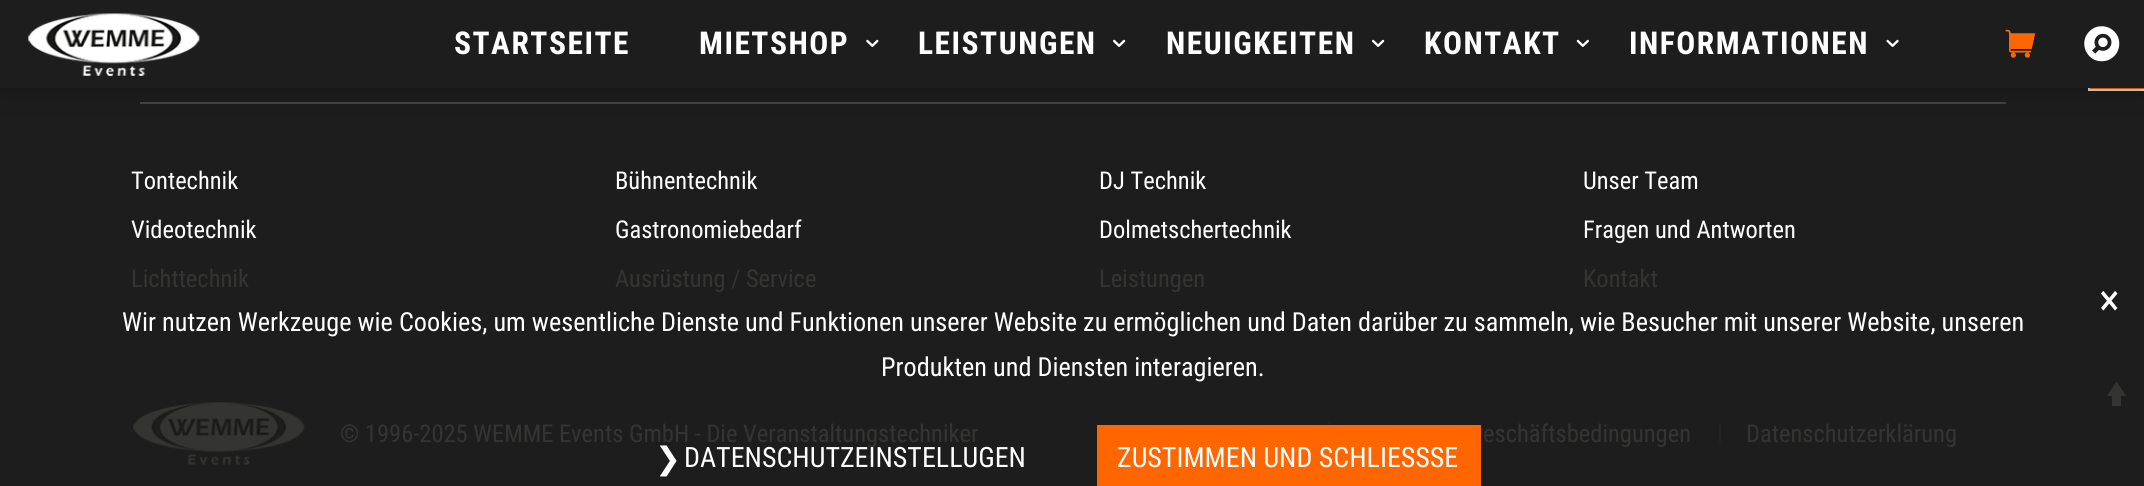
#include <cairo.h>
#include <math.h>
#include <stddef.h>

typedef struct { double x, y, w, h; unsigned color; } box_t;

static void ink(cairo_t *ctx, unsigned color) {
    cairo_set_source_rgb(ctx, (color >> 16) / 255.0, (color >> 8 & 255) / 255.0, (color & 255) / 255.0);
}

static void write_spaced(cairo_t *ctx, double x, double y, const char *s, double letter, double word) {
    cairo_move_to(ctx, x, y);
    while (*s) {
        char ch[5] = {0};
        int n = 0;
        do ch[n++] = *s++; while ((*s & 0xC0) == 0x80);
        cairo_show_text(ctx, ch);
        cairo_rel_move_to(ctx, letter + word * (*ch == ' '), 0);
    }
}

static void round_path(cairo_t *ctx, double x, double y, double w, double h, double r) {
    cairo_new_sub_path(ctx);
    cairo_arc(ctx, x + w - r, y + h - r, r, 0, M_PI / 2);
    cairo_arc(ctx, x + r, y + h - r, r, M_PI / 2, M_PI);
    cairo_arc(ctx, x + r, y + r, r, M_PI, 1.5 * M_PI);
    cairo_arc(ctx, x + w - r, y + r, r, 1.5 * M_PI, 2 * M_PI);
    cairo_close_path(ctx);
}

static void blur_box(cairo_t *ctx, double x, double y, double w, double h, double r, double blur, double alpha) {
    cairo_push_group_with_content(ctx, CAIRO_CONTENT_ALPHA);
    cairo_set_operator(ctx, CAIRO_OPERATOR_SOURCE);
    for (int i = 15; i >= -15 && fmin(w, h) + blur * i / 3 > 0; i -= 2) {
        double e = blur * i / 6;
        cairo_set_source_rgba(ctx, 0, 0, 0, alpha * erfc((i - 1) / 8.5) / 2);
        round_path(ctx, x - e, y - e, w + 2 * e, h + 2 * e, fmax(0, fmin(r + e + blur * .6, fmin(w, h) / 2 + e)));
        cairo_fill(ctx);
    }
    cairo_pattern_t *soft = cairo_pop_group(ctx);
    cairo_mask(ctx, soft);
    cairo_pattern_destroy(soft);
}

static void paste(cairo_t *ctx, const char *path, double x, double y, double w, double h) {
    cairo_surface_t *image = cairo_image_surface_create_from_png(path);
    cairo_save(ctx);
    cairo_set_source_surface(ctx, image, x, y);
    cairo_rectangle(ctx, x, y, w, h);
    cairo_fill(ctx);
    cairo_restore(ctx);
    cairo_surface_destroy(image);
}

int main(void) {
    cairo_surface_t *surface = cairo_image_surface_create(CAIRO_FORMAT_RGB24, 2144, 486);
    cairo_t *ctx = cairo_create(surface);
    cairo_font_options_t *options = cairo_font_options_create();
    cairo_font_options_set_hint_metrics(options, CAIRO_HINT_METRICS_OFF);
    cairo_font_options_set_hint_style(options, CAIRO_HINT_STYLE_NONE);
    cairo_set_font_options(ctx, options);
    cairo_set_miter_limit(ctx, 4);
    ink(ctx, 0x1D1D1D);
    cairo_paint(ctx);
    {
        static const box_t items[] = {
            {2090, 88, 54, 1, 0xFF6600},
            {2088, 89, 56, 2, 0xDBDCDE},
            {2088, 88, 2, 3, 0xDBDCDE},
            {140, 102, 1866, 2, 0x444444},
        };
        for (size_t i = 0; i < sizeof items / sizeof *items; i++) {
            ink(ctx, items[i].color);
            cairo_rectangle(ctx, items[i].x, items[i].y, items[i].w, items[i].h);
            cairo_fill(ctx);
        }
    }
    ink(ctx, 0x000000);
    blur_box(ctx, 0, 0, 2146, 88, 0, 17.5, 0.3);
    ink(ctx, 0x1D1D1D);
    cairo_rectangle(ctx, 0, 0, 2144, 88);
    cairo_fill(ctx);
    paste(ctx, "media/1.png", 28, 13, 172, 63);
    cairo_select_font_face(ctx, "Roboto Condensed", CAIRO_FONT_SLANT_NORMAL, CAIRO_FONT_WEIGHT_BOLD);
    cairo_set_font_size(ctx, 31.5);
    ink(ctx, 0xFFFFFF);
    write_spaced(ctx, 454, 54, "STARTSEITE", 1.5, 0);
    write_spaced(ctx, 699, 54, "MIETSHOP", 1.5, 0);
    paste(ctx, "media/2.png", 866, 39, 13, 8);
    write_spaced(ctx, 918, 54, "LEISTUNGEN", 1.5, 0);
    paste(ctx, "media/3.png", 1113, 39, 13, 8);
    write_spaced(ctx, 1166, 54, "NEUIGKEITEN", 1.5, 0);
    paste(ctx, "media/3.png", 1372, 39, 13, 8);
    write_spaced(ctx, 1424, 54, "KONTAKT", 1.5, 0);
    paste(ctx, "media/4.png", 1576, 39, 13, 8);
    write_spaced(ctx, 1629, 54, "INFORMATIONEN", 1.5, 0);
    paste(ctx, "media/5.png", 1886, 39, 13, 8);
    paste(ctx, "media/6.png", 2005, 29, 31, 29);
    paste(ctx, "media/7.png", 2084, 26, 36, 36);
    cairo_select_font_face(ctx, "Roboto Condensed", CAIRO_FONT_SLANT_NORMAL, CAIRO_FONT_WEIGHT_NORMAL);
    cairo_set_font_size(ctx, 24.5);
    cairo_move_to(ctx, 131, 189);
    cairo_show_text(ctx, "Tontechnik");
    cairo_move_to(ctx, 131, 238);
    cairo_show_text(ctx, "Videotechnik");
    ink(ctx, 0x343432);
    cairo_move_to(ctx, 131, 287);
    cairo_show_text(ctx, "Lichttechnik");
    ink(ctx, 0xFFFFFF);
    cairo_move_to(ctx, 615, 189);
    cairo_show_text(ctx, "Bühnentechnik");
    cairo_move_to(ctx, 615, 238);
    cairo_show_text(ctx, "Gastronomiebedarf");
    ink(ctx, 0x343432);
    cairo_move_to(ctx, 615, 287);
    cairo_show_text(ctx, "Ausrüstung / Service");
    ink(ctx, 0xFFFFFF);
    cairo_move_to(ctx, 1099, 189);
    cairo_show_text(ctx, "DJ Technik");
    cairo_move_to(ctx, 1099, 238);
    cairo_show_text(ctx, "Dolmetschertechnik");
    ink(ctx, 0x343432);
    cairo_move_to(ctx, 1099, 287);
    cairo_show_text(ctx, "Leistungen");
    ink(ctx, 0xFFFFFF);
    cairo_move_to(ctx, 1583, 189);
    cairo_show_text(ctx, "Unser Team");
    cairo_move_to(ctx, 1583, 238);
    cairo_show_text(ctx, "Fragen und Antworten");
    ink(ctx, 0x343432);
    cairo_move_to(ctx, 1583, 287);
    cairo_show_text(ctx, "Kontakt");
    cairo_new_path(ctx);
    cairo_move_to(ctx, 2107, 396);
    cairo_line_to(ctx, 2116.5, 381.5);
    cairo_line_to(ctx, 2126, 396);
    cairo_line_to(ctx, 2121, 396);
    cairo_line_to(ctx, 2121, 406);
    cairo_line_to(ctx, 2112, 406);
    cairo_line_to(ctx, 2112, 396);
    cairo_close_path(ctx);
    cairo_fill(ctx);
    paste(ctx, "media/8.png", 133, 402, 172, 63);
    cairo_move_to(ctx, 340, 442);
    cairo_show_text(ctx, "© 1996-2025 WEMME Events GmbH - Die Veranstaltungstechniker");
    ink(ctx, 0x21211F);
    cairo_rectangle(ctx, 1328, 422, 2, 3);
    cairo_fill(ctx);
    ink(ctx, 0x343432);
    cairo_move_to(ctx, 1483, 442);
    cairo_show_text(ctx, "eschäftsbedingungen");
    ink(ctx, 0x21211F);
    cairo_rectangle(ctx, 1719, 422, 2, 21);
    cairo_fill(ctx);
    ink(ctx, 0x343432);
    cairo_move_to(ctx, 1746, 442);
    cairo_show_text(ctx, "Datenschutzerklärung");
    cairo_set_font_size(ctx, 44);
    ink(ctx, 0xFFFFFF);
    cairo_move_to(ctx, 2099, 315);
    cairo_show_text(ctx, "×");
    cairo_select_font_face(ctx, "DejaVu Sans", CAIRO_FONT_SLANT_NORMAL, CAIRO_FONT_WEIGHT_NORMAL);
    cairo_set_font_size(ctx, 31);
    cairo_move_to(ctx, 655, 469);
    cairo_show_text(ctx, "❯");
    cairo_select_font_face(ctx, "Roboto Condensed", CAIRO_FONT_SLANT_NORMAL, CAIRO_FONT_WEIGHT_NORMAL);
    cairo_set_font_size(ctx, 28);
    cairo_move_to(ctx, 684, 467);
    cairo_show_text(ctx, "DATENSCHUTZEINSTELLUGEN");
    ink(ctx, 0xFF6600);
    cairo_rectangle(ctx, 1097, 425, 384, 61);
    cairo_fill(ctx);
    ink(ctx, 0xFFFFFF);
    cairo_move_to(ctx, 1117, 467);
    cairo_show_text(ctx, "ZUSTIMMEN UND SCHLIESSSE");
    cairo_set_font_size(ctx, 26.25);
    cairo_move_to(ctx, 122, 331);
    cairo_show_text(ctx, "Wir nutzen Werkzeuge wie Cookies, um wesentliche Dienste und Funktionen unserer Website zu ermöglichen und Daten darüber zu sammeln, wie Besucher mit unserer Website, unseren");
    cairo_move_to(ctx, 881, 376);
    cairo_show_text(ctx, "Produkten und Diensten interagieren.");
    cairo_surface_write_to_png(surface, "image.png");
    cairo_font_options_destroy(options);
    cairo_destroy(ctx);
    cairo_surface_destroy(surface);
    return 0;
}
